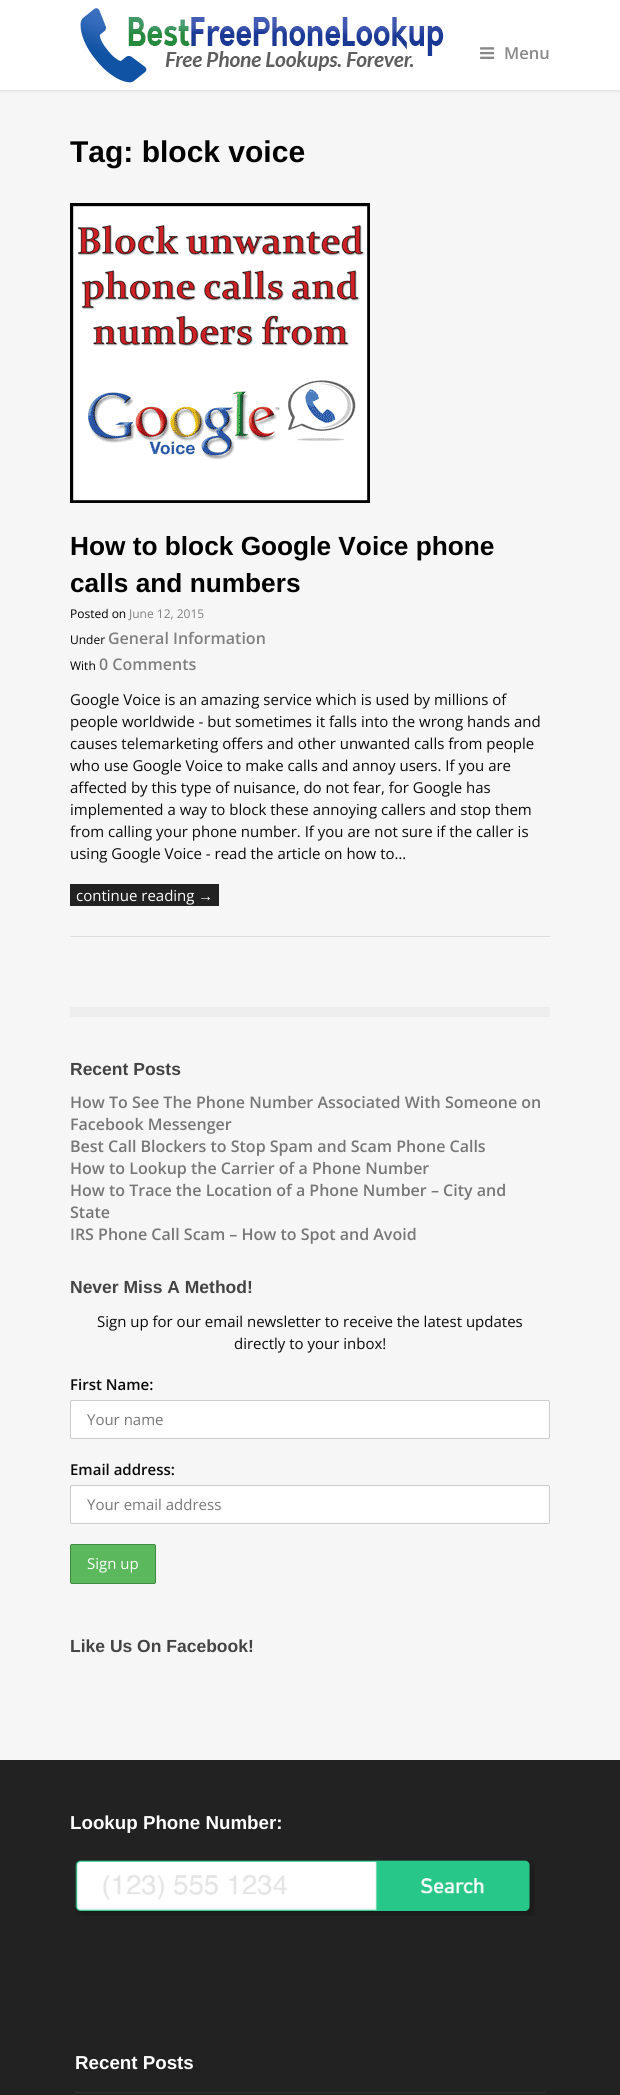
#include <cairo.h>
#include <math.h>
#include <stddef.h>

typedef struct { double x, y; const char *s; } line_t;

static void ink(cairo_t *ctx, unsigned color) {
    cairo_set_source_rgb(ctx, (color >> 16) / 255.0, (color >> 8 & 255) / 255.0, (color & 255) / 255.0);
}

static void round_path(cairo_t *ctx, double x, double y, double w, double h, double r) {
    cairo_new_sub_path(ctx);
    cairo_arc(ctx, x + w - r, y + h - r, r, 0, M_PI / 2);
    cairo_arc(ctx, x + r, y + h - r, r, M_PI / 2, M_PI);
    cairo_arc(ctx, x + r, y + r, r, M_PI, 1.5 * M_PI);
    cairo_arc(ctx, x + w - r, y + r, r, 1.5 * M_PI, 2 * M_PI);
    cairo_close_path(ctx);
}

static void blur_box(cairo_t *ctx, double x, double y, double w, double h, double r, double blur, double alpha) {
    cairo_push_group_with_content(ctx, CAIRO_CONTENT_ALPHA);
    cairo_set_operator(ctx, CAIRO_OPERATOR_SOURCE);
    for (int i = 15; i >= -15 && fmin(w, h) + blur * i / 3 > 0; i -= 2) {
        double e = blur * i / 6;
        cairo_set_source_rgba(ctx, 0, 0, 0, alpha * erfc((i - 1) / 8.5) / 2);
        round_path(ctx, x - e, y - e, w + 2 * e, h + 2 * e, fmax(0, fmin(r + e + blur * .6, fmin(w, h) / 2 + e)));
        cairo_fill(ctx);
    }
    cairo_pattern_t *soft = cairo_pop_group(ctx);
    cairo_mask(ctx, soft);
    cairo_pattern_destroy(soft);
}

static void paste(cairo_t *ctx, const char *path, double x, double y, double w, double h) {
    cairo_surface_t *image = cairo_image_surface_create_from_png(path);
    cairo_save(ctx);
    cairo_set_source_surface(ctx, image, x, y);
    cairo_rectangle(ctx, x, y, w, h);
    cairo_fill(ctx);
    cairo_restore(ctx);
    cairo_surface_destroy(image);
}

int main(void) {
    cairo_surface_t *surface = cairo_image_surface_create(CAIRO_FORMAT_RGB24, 620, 2095);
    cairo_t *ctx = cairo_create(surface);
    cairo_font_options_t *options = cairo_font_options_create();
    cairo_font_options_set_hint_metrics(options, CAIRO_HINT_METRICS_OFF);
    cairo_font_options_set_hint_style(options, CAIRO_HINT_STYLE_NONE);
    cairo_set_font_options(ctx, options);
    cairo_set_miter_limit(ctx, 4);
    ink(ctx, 0xF6F6F6);
    cairo_paint(ctx);
    ink(ctx, 0x000000);
    blur_box(ctx, 0, 0, 620, 91, 0, 1.5, 0.1);
    ink(ctx, 0xFFFFFF);
    cairo_rectangle(ctx, 0, 0, 620, 90);
    cairo_fill(ctx);
    ink(ctx, 0xE4E4E4);
    cairo_rectangle(ctx, 0, 90, 620, 1);
    cairo_fill(ctx);
    paste(ctx, "media/1.png", 80, 8, 364, 75);
    paste(ctx, "media/2.png", 480, 47, 15, 12);
    cairo_select_font_face(ctx, "Open Sans SemiBold", CAIRO_FONT_SLANT_NORMAL, CAIRO_FONT_WEIGHT_NORMAL);
    cairo_set_font_size(ctx, 16.5);
    ink(ctx, 0x888888);
    cairo_move_to(ctx, 504, 59);
    cairo_show_text(ctx, "Menu");
    cairo_select_font_face(ctx, "Liberation Sans", CAIRO_FONT_SLANT_NORMAL, CAIRO_FONT_WEIGHT_BOLD);
    cairo_set_font_size(ctx, 30);
    ink(ctx, 0x000000);
    cairo_move_to(ctx, 70, 162);
    cairo_show_text(ctx, "Tag: block voice");
    ink(ctx, 0xDDDDDD);
    cairo_rectangle(ctx, 70, 936, 480, 1);
    cairo_fill(ctx);
    paste(ctx, "media/3.png", 70, 203, 300, 300);
    cairo_set_font_size(ctx, 26.25);
    ink(ctx, 0x000000);
    cairo_move_to(ctx, 70, 555);
    cairo_show_text(ctx, "How to block Google Voice phone");
    cairo_move_to(ctx, 70, 592);
    cairo_show_text(ctx, "calls and numbers");
    cairo_select_font_face(ctx, "Open Sans", CAIRO_FONT_SLANT_NORMAL, CAIRO_FONT_WEIGHT_NORMAL);
    cairo_set_font_size(ctx, 12);
    cairo_move_to(ctx, 70, 618);
    cairo_show_text(ctx, "Posted on");
    ink(ctx, 0x808080);
    cairo_move_to(ctx, 129, 618);
    cairo_show_text(ctx, "June 12, 2015");
    ink(ctx, 0x000000);
    cairo_move_to(ctx, 70, 644);
    cairo_show_text(ctx, "Under");
    cairo_select_font_face(ctx, "Open Sans SemiBold", CAIRO_FONT_SLANT_NORMAL, CAIRO_FONT_WEIGHT_NORMAL);
    cairo_set_font_size(ctx, 16);
    ink(ctx, 0x808080);
    cairo_move_to(ctx, 108, 644);
    cairo_show_text(ctx, "General Information");
    cairo_select_font_face(ctx, "Open Sans", CAIRO_FONT_SLANT_NORMAL, CAIRO_FONT_WEIGHT_NORMAL);
    cairo_set_font_size(ctx, 12);
    ink(ctx, 0x000000);
    cairo_move_to(ctx, 70, 670);
    cairo_show_text(ctx, "With");
    cairo_select_font_face(ctx, "Open Sans SemiBold", CAIRO_FONT_SLANT_NORMAL, CAIRO_FONT_WEIGHT_NORMAL);
    cairo_set_font_size(ctx, 16);
    ink(ctx, 0x808080);
    cairo_move_to(ctx, 99, 670);
    cairo_show_text(ctx, "0 Comments");
    cairo_select_font_face(ctx, "Open Sans", CAIRO_FONT_SLANT_NORMAL, CAIRO_FONT_WEIGHT_NORMAL);
    cairo_set_font_size(ctx, 15);
    ink(ctx, 0x0A0A0A);
    {
        static const line_t items[] = {
            {70, 705, "Google Voice is an amazing service which is used by millions of"},
            {70, 727, "people worldwide - but sometimes it falls into the wrong hands and"},
            {70, 749, "causes telemarketing offers and other unwanted calls from people"},
            {70, 771, "who use Google Voice to make calls and annoy users. If you are"},
            {70, 793, "affected by this type of nuisance, do not fear, for Google has"},
            {70, 815, "implemented a way to block these annoying callers and stop them"},
            {70, 837, "from calling your phone number. If you are not sure if the caller is"},
            {70, 859, "using Google Voice - read the article on how to…"},
        };
        for (size_t i = 0; i < sizeof items / sizeof *items; i++) {
            cairo_move_to(ctx, items[i].x, items[i].y);
            cairo_show_text(ctx, items[i].s);
        }
    }
    ink(ctx, 0x222222);
    cairo_rectangle(ctx, 70, 884, 149, 22);
    cairo_fill(ctx);
    ink(ctx, 0xFFFFFF);
    cairo_move_to(ctx, 76, 901);
    cairo_show_text(ctx, "continue reading");
    cairo_select_font_face(ctx, "Liberation Sans", CAIRO_FONT_SLANT_NORMAL, CAIRO_FONT_WEIGHT_NORMAL);
    cairo_move_to(ctx, 198, 901);
    cairo_show_text(ctx, "→");
    ink(ctx, 0xEEEEEE);
    cairo_rectangle(ctx, 70, 1007, 480, 10);
    cairo_fill(ctx);
    cairo_select_font_face(ctx, "Liberation Sans", CAIRO_FONT_SLANT_NORMAL, CAIRO_FONT_WEIGHT_BOLD);
    cairo_set_font_size(ctx, 17.5);
    ink(ctx, 0x444444);
    cairo_move_to(ctx, 70, 1075);
    cairo_show_text(ctx, "Recent Posts");
    cairo_select_font_face(ctx, "Open Sans SemiBold", CAIRO_FONT_SLANT_NORMAL, CAIRO_FONT_WEIGHT_NORMAL);
    cairo_set_font_size(ctx, 16);
    ink(ctx, 0x777777);
    {
        static const line_t items[] = {
            {70, 1108, "How To See The Phone Number Associated With Someone on"},
            {70, 1130, "Facebook Messenger"},
            {70, 1152, "Best Call Blockers to Stop Spam and Scam Phone Calls"},
            {70, 1174, "How to Lookup the Carrier of a Phone Number"},
            {70, 1196, "How to Trace the Location of a Phone Number – City and"},
            {70, 1218, "State"},
            {70, 1240, "IRS Phone Call Scam – How to Spot and Avoid"},
        };
        for (size_t i = 0; i < sizeof items / sizeof *items; i++) {
            cairo_move_to(ctx, items[i].x, items[i].y);
            cairo_show_text(ctx, items[i].s);
        }
    }
    cairo_select_font_face(ctx, "Liberation Sans", CAIRO_FONT_SLANT_NORMAL, CAIRO_FONT_WEIGHT_BOLD);
    cairo_set_font_size(ctx, 17.5);
    ink(ctx, 0x444444);
    cairo_move_to(ctx, 70, 1293);
    cairo_show_text(ctx, "Never Miss A Method!");
    cairo_select_font_face(ctx, "Open Sans", CAIRO_FONT_SLANT_NORMAL, CAIRO_FONT_WEIGHT_NORMAL);
    cairo_set_font_size(ctx, 15);
    ink(ctx, 0x0A0A0A);
    cairo_move_to(ctx, 97, 1327);
    cairo_show_text(ctx, "Sign up for our email newsletter to receive the latest updates");
    cairo_move_to(ctx, 234, 1349);
    cairo_show_text(ctx, "directly to your inbox!");
    cairo_select_font_face(ctx, "Open Sans SemiBold", CAIRO_FONT_SLANT_NORMAL, CAIRO_FONT_WEIGHT_NORMAL);
    cairo_move_to(ctx, 70, 1390);
    cairo_show_text(ctx, "First Name:");
    ink(ctx, 0xFFFFFF);
    round_path(ctx, 70.5, 1400.5, 479, 38, 1.5);
    cairo_fill_preserve(ctx);
    ink(ctx, 0xCCCCCC);
    cairo_set_line_width(ctx, 1);
    cairo_stroke(ctx);
    cairo_select_font_face(ctx, "Open Sans", CAIRO_FONT_SLANT_NORMAL, CAIRO_FONT_WEIGHT_NORMAL);
    ink(ctx, 0x777777);
    cairo_move_to(ctx, 87, 1425);
    cairo_show_text(ctx, "Your name");
    cairo_select_font_face(ctx, "Open Sans SemiBold", CAIRO_FONT_SLANT_NORMAL, CAIRO_FONT_WEIGHT_NORMAL);
    ink(ctx, 0x0A0A0A);
    cairo_move_to(ctx, 70, 1475);
    cairo_show_text(ctx, "Email address:");
    ink(ctx, 0xFFFFFF);
    round_path(ctx, 70.5, 1485.5, 479, 38, 1.5);
    cairo_fill_preserve(ctx);
    ink(ctx, 0xCCCCCC);
    cairo_stroke(ctx);
    cairo_select_font_face(ctx, "Open Sans", CAIRO_FONT_SLANT_NORMAL, CAIRO_FONT_WEIGHT_NORMAL);
    ink(ctx, 0x777777);
    cairo_move_to(ctx, 87, 1510);
    cairo_show_text(ctx, "Your email address");
    ink(ctx, 0x5CB85C);
    round_path(ctx, 70.5, 1544.5, 85, 39, 1.5);
    cairo_fill_preserve(ctx);
    ink(ctx, 0x3D8B3D);
    cairo_stroke(ctx);
    ink(ctx, 0xFFFFFF);
    cairo_move_to(ctx, 87, 1569);
    cairo_show_text(ctx, "Sign up");
    cairo_select_font_face(ctx, "Liberation Sans", CAIRO_FONT_SLANT_NORMAL, CAIRO_FONT_WEIGHT_BOLD);
    cairo_set_font_size(ctx, 17.5);
    ink(ctx, 0x444444);
    cairo_move_to(ctx, 70, 1652);
    cairo_show_text(ctx, "Like Us On Facebook!");
    ink(ctx, 0x222222);
    cairo_rectangle(ctx, 0, 1760, 620, 335);
    cairo_fill(ctx);
    cairo_set_font_size(ctx, 18.75);
    ink(ctx, 0xFFFFFF);
    cairo_move_to(ctx, 70, 1829);
    cairo_show_text(ctx, "Lookup Phone Number:");
    paste(ctx, "media/4.png", 75, 1860, 460, 56);
    cairo_move_to(ctx, 75, 2069);
    cairo_show_text(ctx, "Recent Posts");
    ink(ctx, 0x333333);
    cairo_rectangle(ctx, 75, 2092, 470, 1);
    cairo_fill(ctx);
    cairo_surface_write_to_png(surface, "image.png");
    cairo_font_options_destroy(options);
    cairo_destroy(ctx);
    cairo_surface_destroy(surface);
    return 0;
}
